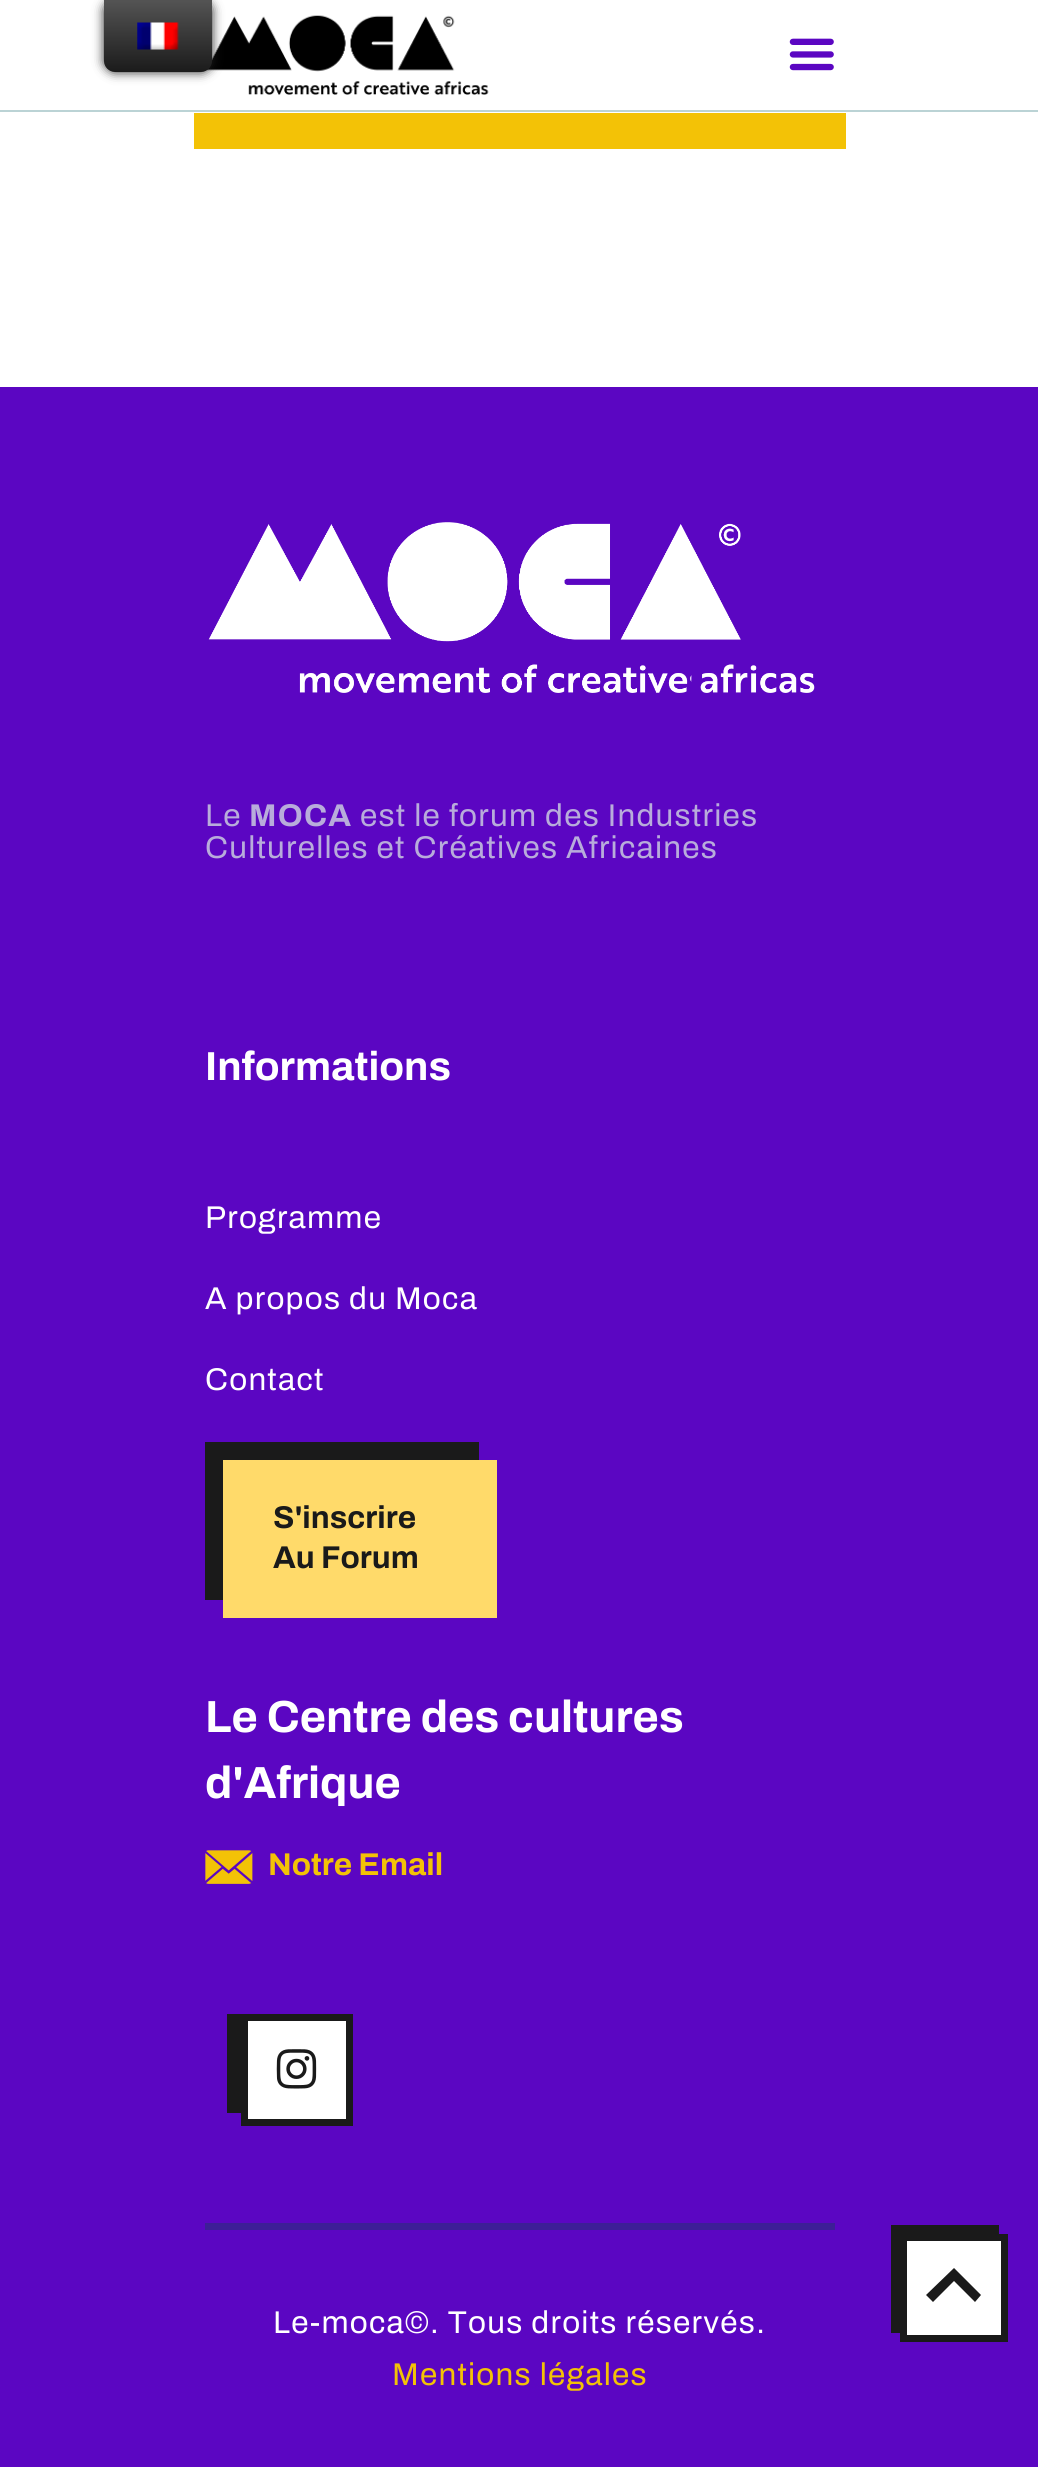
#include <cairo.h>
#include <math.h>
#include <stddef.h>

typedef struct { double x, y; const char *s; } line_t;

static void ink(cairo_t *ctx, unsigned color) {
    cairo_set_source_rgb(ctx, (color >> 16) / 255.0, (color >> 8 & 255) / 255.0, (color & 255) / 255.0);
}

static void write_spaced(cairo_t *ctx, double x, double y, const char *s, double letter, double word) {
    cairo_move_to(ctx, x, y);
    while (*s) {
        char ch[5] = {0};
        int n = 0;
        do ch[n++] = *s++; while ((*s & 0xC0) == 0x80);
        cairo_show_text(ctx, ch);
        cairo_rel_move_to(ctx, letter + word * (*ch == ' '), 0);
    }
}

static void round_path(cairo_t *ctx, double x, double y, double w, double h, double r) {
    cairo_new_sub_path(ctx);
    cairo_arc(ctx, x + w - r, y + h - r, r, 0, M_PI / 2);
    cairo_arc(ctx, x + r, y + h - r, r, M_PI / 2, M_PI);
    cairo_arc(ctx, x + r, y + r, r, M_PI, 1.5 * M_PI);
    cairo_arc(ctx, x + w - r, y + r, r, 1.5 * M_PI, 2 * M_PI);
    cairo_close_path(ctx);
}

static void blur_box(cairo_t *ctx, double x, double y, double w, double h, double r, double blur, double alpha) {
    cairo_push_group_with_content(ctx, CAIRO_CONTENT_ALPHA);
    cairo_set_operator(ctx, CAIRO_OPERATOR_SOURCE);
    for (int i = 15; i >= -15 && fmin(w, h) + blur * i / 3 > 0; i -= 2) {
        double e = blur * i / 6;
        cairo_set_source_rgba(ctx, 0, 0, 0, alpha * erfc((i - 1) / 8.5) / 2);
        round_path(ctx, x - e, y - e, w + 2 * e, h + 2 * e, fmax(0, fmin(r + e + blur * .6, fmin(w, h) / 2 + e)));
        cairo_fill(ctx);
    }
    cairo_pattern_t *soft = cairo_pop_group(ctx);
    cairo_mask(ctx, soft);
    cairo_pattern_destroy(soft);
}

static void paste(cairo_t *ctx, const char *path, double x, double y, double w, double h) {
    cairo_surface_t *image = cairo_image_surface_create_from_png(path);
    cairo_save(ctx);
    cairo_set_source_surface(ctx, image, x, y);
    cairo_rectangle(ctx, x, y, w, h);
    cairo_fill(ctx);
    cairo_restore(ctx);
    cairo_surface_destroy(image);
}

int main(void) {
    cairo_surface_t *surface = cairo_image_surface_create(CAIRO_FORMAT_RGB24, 1038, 2467);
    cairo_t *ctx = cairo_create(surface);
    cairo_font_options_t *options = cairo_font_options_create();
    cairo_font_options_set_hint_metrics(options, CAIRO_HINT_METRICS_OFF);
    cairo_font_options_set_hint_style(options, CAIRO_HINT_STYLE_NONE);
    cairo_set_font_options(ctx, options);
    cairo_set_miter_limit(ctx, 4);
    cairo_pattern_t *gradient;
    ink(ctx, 0xFFFFFF);
    cairo_paint(ctx);
    paste(ctx, "media/2.png", 206, 15, 283, 80);
    ink(ctx, 0x212121);
    blur_box(ctx, 104, 0, 108, 72, 11, 5.5, 1);
    gradient = cairo_pattern_create_linear(158, 72, 158, 0);
    cairo_pattern_add_color_stop_rgba(gradient, 0, 0.106, 0.106, 0.106, 1);
    cairo_pattern_add_color_stop_rgba(gradient, 1, 0.329, 0.329, 0.329, 1);
    cairo_set_source(ctx, gradient);
    cairo_pattern_destroy(gradient);
    cairo_new_path(ctx);
    cairo_move_to(ctx, 104, 0);
    cairo_line_to(ctx, 212, 0);
    cairo_line_to(ctx, 212, 61);
    cairo_curve_to(ctx, 212, 67, 207, 72, 201, 72);
    cairo_line_to(ctx, 115, 72);
    cairo_curve_to(ctx, 109, 72, 104, 67, 104, 61);
    cairo_close_path(ctx);
    cairo_fill(ctx);
    paste(ctx, "media/1.png", 137, 22, 42, 28);
    ink(ctx, 0xBBD3D5);
    cairo_rectangle(ctx, 0, 110, 1038, 2);
    cairo_fill(ctx);
    paste(ctx, "media/3.png", 789, 38, 45, 33);
    ink(ctx, 0xF3C206);
    cairo_rectangle(ctx, 194, 113, 652, 36);
    cairo_fill(ctx);
    ink(ctx, 0x5B06C2);
    cairo_rectangle(ctx, 0, 387, 1038, 2080);
    cairo_fill(ctx);
    paste(ctx, "media/4.png", 208, 522, 607, 171);
    cairo_select_font_face(ctx, "Archivo", CAIRO_FONT_SLANT_NORMAL, CAIRO_FONT_WEIGHT_NORMAL);
    cairo_set_font_size(ctx, 31.5);
    ink(ctx, 0xB8ACDB);
    write_spaced(ctx, 205, 826, "Le", 1.25, 0);
    cairo_select_font_face(ctx, "Archivo", CAIRO_FONT_SLANT_NORMAL, CAIRO_FONT_WEIGHT_BOLD);
    write_spaced(ctx, 249, 826, "MOCA", 1.25, 0);
    cairo_select_font_face(ctx, "Archivo", CAIRO_FONT_SLANT_NORMAL, CAIRO_FONT_WEIGHT_NORMAL);
    write_spaced(ctx, 360, 826, "est le forum des Industries", 1.25, 0);
    write_spaced(ctx, 205, 858, "Culturelles et Créatives Africaines", 1.25, 0);
    cairo_select_font_face(ctx, "Archivo", CAIRO_FONT_SLANT_NORMAL, CAIRO_FONT_WEIGHT_BOLD);
    cairo_set_font_size(ctx, 40.5);
    ink(ctx, 0xFFFFFF);
    cairo_move_to(ctx, 205, 1080);
    cairo_show_text(ctx, "Informations");
    cairo_select_font_face(ctx, "Archivo", CAIRO_FONT_SLANT_NORMAL, CAIRO_FONT_WEIGHT_NORMAL);
    cairo_set_font_size(ctx, 31.5);
    {
        static const line_t items[] = {
            {205, 1228, "Programme"},
            {205, 1309, "A propos du Moca"},
            {205, 1390, "Contact"},
        };
        for (size_t i = 0; i < sizeof items / sizeof *items; i++) {
            write_spaced(ctx, items[i].x, items[i].y, items[i].s, 1.25, 0);
        }
    }
    ink(ctx, 0x1A1A1A);
    cairo_new_path(ctx);
    cairo_move_to(ctx, 205, 1442);
    cairo_line_to(ctx, 205, 1600);
    cairo_line_to(ctx, 223, 1600);
    cairo_line_to(ctx, 223, 1460);
    cairo_line_to(ctx, 479, 1460);
    cairo_line_to(ctx, 479, 1442);
    cairo_close_path(ctx);
    cairo_fill(ctx);
    ink(ctx, 0xFFDA6A);
    cairo_rectangle(ctx, 223, 1460, 274, 158);
    cairo_fill(ctx);
    cairo_select_font_face(ctx, "Archivo", CAIRO_FONT_SLANT_NORMAL, CAIRO_FONT_WEIGHT_BOLD);
    ink(ctx, 0x1A1A1A);
    cairo_move_to(ctx, 273, 1528);
    cairo_show_text(ctx, "S'inscrire");
    cairo_move_to(ctx, 273, 1568);
    cairo_show_text(ctx, "Au Forum");
    cairo_set_font_size(ctx, 45);
    ink(ctx, 0xFFFFFF);
    cairo_move_to(ctx, 205, 1732);
    cairo_show_text(ctx, "Le Centre des cultures");
    cairo_move_to(ctx, 205, 1798);
    cairo_show_text(ctx, "d'Afrique");
    paste(ctx, "media/5.png", 205, 1850, 48, 34);
    cairo_set_font_size(ctx, 31.5);
    ink(ctx, 0xF3C206);
    cairo_move_to(ctx, 268, 1875);
    cairo_show_text(ctx, "Notre Email");
    cairo_save(ctx);
    cairo_rectangle(ctx, 223, 2014, 148, 142);
    cairo_clip(ctx);
    ink(ctx, 0x1A1A1A);
    cairo_new_path(ctx);
    cairo_move_to(ctx, 227, 2000);
    cairo_line_to(ctx, 227, 2113);
    cairo_line_to(ctx, 241, 2113);
    cairo_line_to(ctx, 241, 2014);
    cairo_line_to(ctx, 340, 2014);
    cairo_line_to(ctx, 340, 2000);
    cairo_close_path(ctx);
    cairo_fill(ctx);
    cairo_restore(ctx);
    ink(ctx, 0xFFFFFF);
    cairo_rectangle(ctx, 244.5, 2017.5, 105, 105);
    cairo_fill_preserve(ctx);
    ink(ctx, 0x1A1A1A);
    cairo_set_line_width(ctx, 7);
    cairo_stroke(ctx);
    paste(ctx, "media/6.png", 276, 2049, 41, 40);
    ink(ctx, 0x3D1E97);
    cairo_rectangle(ctx, 205, 2223, 630, 7);
    cairo_fill(ctx);
    cairo_select_font_face(ctx, "Archivo", CAIRO_FONT_SLANT_NORMAL, CAIRO_FONT_WEIGHT_NORMAL);
    ink(ctx, 0xFFFFFF);
    write_spaced(ctx, 273, 2333, "Le-moca©. Tous droits réservés.", 1.25, 0);
    ink(ctx, 0xF3C206);
    write_spaced(ctx, 392, 2385, "Mentions légales", 1.25, 0);
    ink(ctx, 0x1A1A1A);
    cairo_new_path(ctx);
    cairo_move_to(ctx, 891, 2225);
    cairo_line_to(ctx, 891, 2333);
    cairo_line_to(ctx, 900, 2333);
    cairo_line_to(ctx, 900, 2234);
    cairo_line_to(ctx, 999, 2234);
    cairo_line_to(ctx, 999, 2225);
    cairo_close_path(ctx);
    cairo_fill(ctx);
    ink(ctx, 0xFFFFFF);
    cairo_rectangle(ctx, 903.5, 2237.5, 101, 101);
    cairo_fill_preserve(ctx);
    ink(ctx, 0x1A1A1A);
    cairo_stroke(ctx);
    cairo_new_path(ctx);
    cairo_move_to(ctx, 926, 2295);
    cairo_line_to(ctx, 933, 2302);
    cairo_line_to(ctx, 954, 2281);
    cairo_line_to(ctx, 975, 2302);
    cairo_line_to(ctx, 981, 2295);
    cairo_line_to(ctx, 954, 2268);
    cairo_close_path(ctx);
    cairo_fill(ctx);
    cairo_surface_write_to_png(surface, "image.png");
    cairo_font_options_destroy(options);
    cairo_destroy(ctx);
    cairo_surface_destroy(surface);
    return 0;
}
